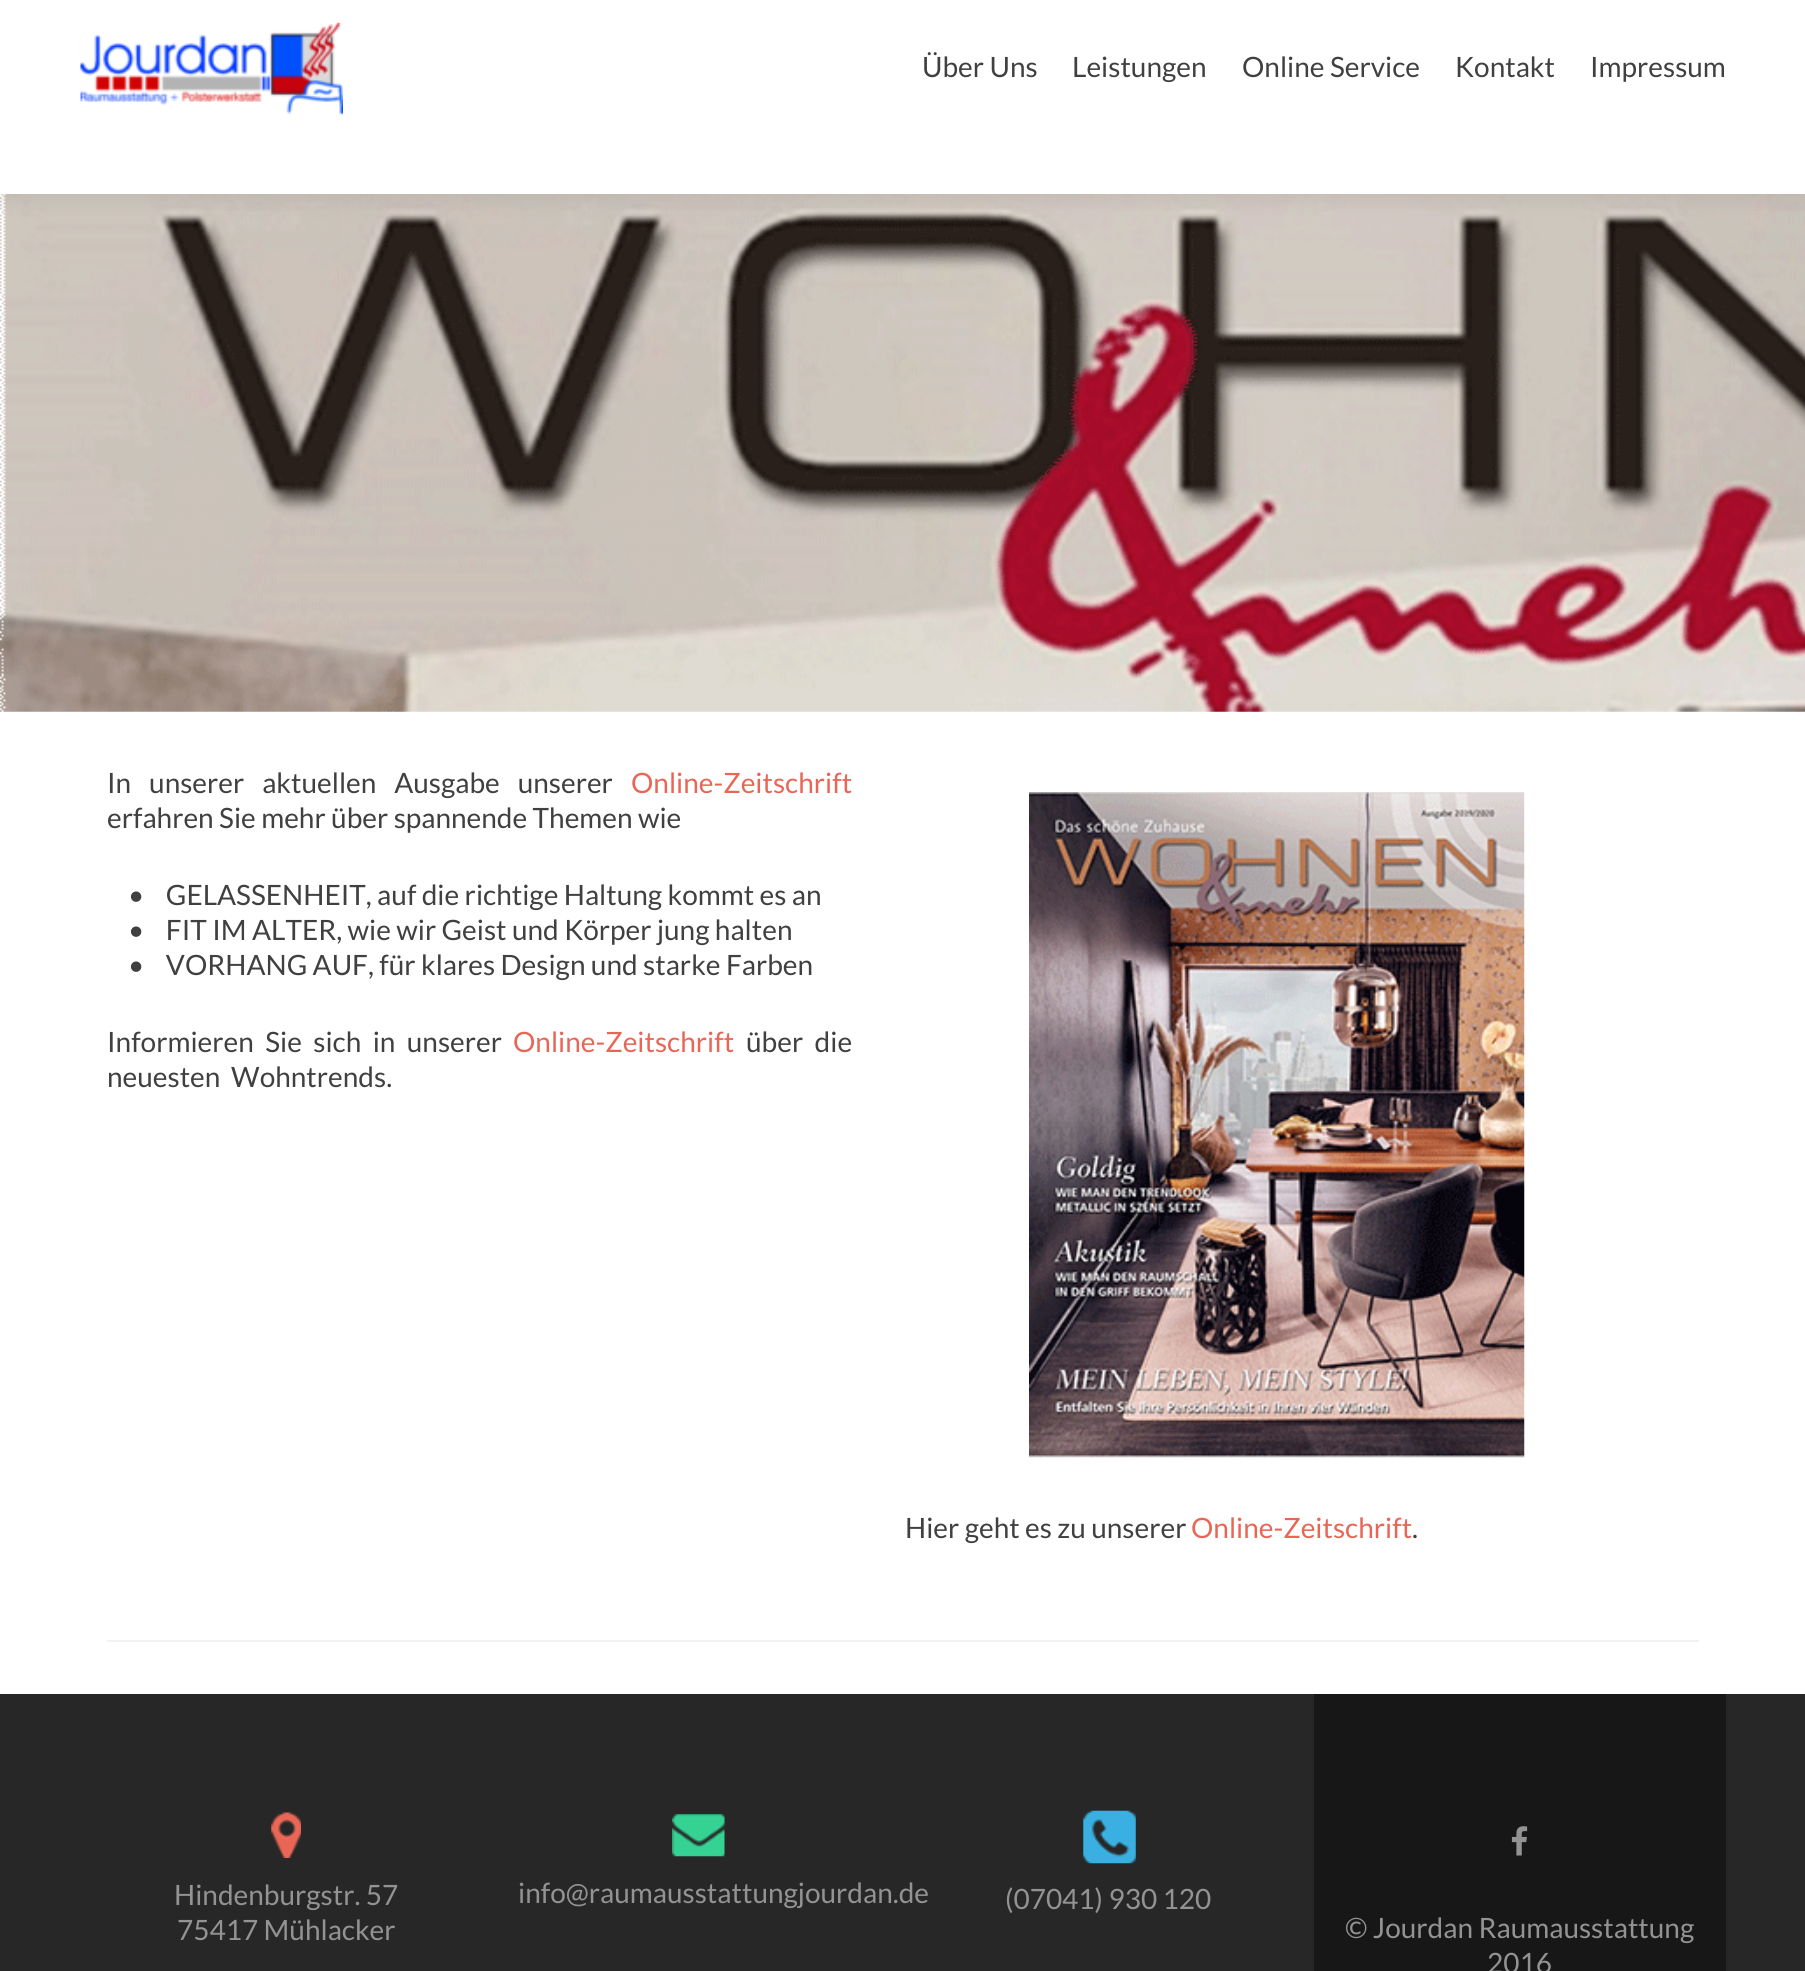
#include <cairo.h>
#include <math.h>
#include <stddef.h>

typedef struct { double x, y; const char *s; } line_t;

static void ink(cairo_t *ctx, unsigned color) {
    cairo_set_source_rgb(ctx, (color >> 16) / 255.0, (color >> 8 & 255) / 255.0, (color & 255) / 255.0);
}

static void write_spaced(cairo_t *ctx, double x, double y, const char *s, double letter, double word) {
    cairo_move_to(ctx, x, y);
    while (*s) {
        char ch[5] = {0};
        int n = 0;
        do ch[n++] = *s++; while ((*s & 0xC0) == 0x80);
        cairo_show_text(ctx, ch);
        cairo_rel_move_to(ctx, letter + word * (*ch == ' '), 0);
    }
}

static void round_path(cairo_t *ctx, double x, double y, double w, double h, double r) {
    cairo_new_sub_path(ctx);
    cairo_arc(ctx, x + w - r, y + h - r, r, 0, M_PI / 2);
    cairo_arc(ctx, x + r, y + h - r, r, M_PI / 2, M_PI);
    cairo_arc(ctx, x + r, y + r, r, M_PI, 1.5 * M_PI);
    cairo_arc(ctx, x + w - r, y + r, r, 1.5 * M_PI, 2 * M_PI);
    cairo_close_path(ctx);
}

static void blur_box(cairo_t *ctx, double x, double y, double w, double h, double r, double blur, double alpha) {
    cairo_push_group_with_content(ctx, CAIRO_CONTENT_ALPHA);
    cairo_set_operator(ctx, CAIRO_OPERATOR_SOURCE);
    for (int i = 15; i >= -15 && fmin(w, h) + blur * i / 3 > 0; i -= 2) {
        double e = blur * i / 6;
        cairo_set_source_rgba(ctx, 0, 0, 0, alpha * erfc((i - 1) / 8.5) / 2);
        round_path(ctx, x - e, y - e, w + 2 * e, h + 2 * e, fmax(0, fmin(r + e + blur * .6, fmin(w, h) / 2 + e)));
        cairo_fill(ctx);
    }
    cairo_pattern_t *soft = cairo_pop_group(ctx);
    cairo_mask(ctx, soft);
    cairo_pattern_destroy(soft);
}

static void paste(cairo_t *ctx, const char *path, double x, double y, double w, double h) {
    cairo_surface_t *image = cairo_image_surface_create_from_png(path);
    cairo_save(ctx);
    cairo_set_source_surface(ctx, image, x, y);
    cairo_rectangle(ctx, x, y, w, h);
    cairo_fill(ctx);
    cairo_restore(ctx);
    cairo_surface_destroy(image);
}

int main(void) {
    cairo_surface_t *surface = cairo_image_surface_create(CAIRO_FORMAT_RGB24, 1805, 1971);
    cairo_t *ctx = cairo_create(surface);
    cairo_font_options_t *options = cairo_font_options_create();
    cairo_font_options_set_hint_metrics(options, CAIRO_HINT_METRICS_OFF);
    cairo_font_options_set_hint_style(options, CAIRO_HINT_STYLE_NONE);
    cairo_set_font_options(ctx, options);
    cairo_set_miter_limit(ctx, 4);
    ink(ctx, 0xFFFFFF);
    cairo_paint(ctx);
    paste(ctx, "media/2.png", 0, 194, 1805, 518);
    ink(ctx, 0x323232);
    blur_box(ctx, 0, 9, 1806, 194, 0, 9.5, 0.08);
    ink(ctx, 0xFFFFFF);
    cairo_rectangle(ctx, 0, 0, 1805, 194);
    cairo_fill(ctx);
    paste(ctx, "media/1.png", 80, 22, 263, 93);
    cairo_select_font_face(ctx, "Lato", CAIRO_FONT_SLANT_NORMAL, CAIRO_FONT_WEIGHT_NORMAL);
    cairo_set_font_size(ctx, 28);
    ink(ctx, 0x404040);
    {
        static const line_t items[] = {
            {922, 77, "Über Uns"},
            {1072, 77, "Leistungen"},
            {1242, 77, "Online Service"},
            {1455, 77, "Kontakt"},
            {1590, 77, "Impressum"},
        };
        for (size_t i = 0; i < sizeof items / sizeof *items; i++) {
            cairo_move_to(ctx, items[i].x, items[i].y);
            cairo_show_text(ctx, items[i].s);
        }
    }
    ink(ctx, 0xF2F2F2);
    cairo_rectangle(ctx, 107, 1640, 1592, 2);
    cairo_fill(ctx);
    ink(ctx, 0x404040);
    write_spaced(ctx, 107, 793, "In unserer aktuellen Ausgabe unserer", 0, 12.5);
    ink(ctx, 0xE96656);
    cairo_move_to(ctx, 631, 793);
    cairo_show_text(ctx, "Online-Zeitschrift");
    ink(ctx, 0x404040);
    {
        static const line_t items[] = {
            {107, 828, "erfahren Sie mehr über spannende Themen wie"},
            {128, 905, "•    GELASSENHEIT, auf die richtige Haltung kommt es an"},
            {128, 940, "•    FIT IM ALTER, wie wir Geist und Körper jung halten"},
            {128, 975, "•    VORHANG AUF, für klares Design und starke Farben"},
        };
        for (size_t i = 0; i < sizeof items / sizeof *items; i++) {
            cairo_move_to(ctx, items[i].x, items[i].y);
            cairo_show_text(ctx, items[i].s);
        }
    }
    write_spaced(ctx, 107, 1052, "Informieren Sie sich in unserer", 0, 6);
    ink(ctx, 0xE96656);
    cairo_move_to(ctx, 513, 1052);
    cairo_show_text(ctx, "Online-Zeitschrift");
    ink(ctx, 0x404040);
    write_spaced(ctx, 746, 1052, "über die", 0, 6);
    cairo_move_to(ctx, 107, 1087);
    cairo_show_text(ctx, "neuesten  Wohntrends.");
    paste(ctx, "media/3.png", 1029, 792, 496, 666);
    cairo_move_to(ctx, 905, 1538);
    cairo_show_text(ctx, "Hier geht es zu unserer");
    ink(ctx, 0xE96656);
    cairo_move_to(ctx, 1191, 1538);
    cairo_show_text(ctx, "Online-Zeitschrift");
    ink(ctx, 0x404040);
    cairo_move_to(ctx, 1412, 1538);
    cairo_show_text(ctx, ".");
    ink(ctx, 0x272727);
    cairo_rectangle(ctx, 0, 1694, 1805, 277);
    cairo_fill(ctx);
    paste(ctx, "media/4.png", 271, 1812, 30, 46);
    ink(ctx, 0x939393);
    cairo_move_to(ctx, 174, 1905);
    cairo_show_text(ctx, "Hindenburgstr. 57");
    cairo_move_to(ctx, 177, 1940);
    cairo_show_text(ctx, "75417 Mühlacker");
    paste(ctx, "media/5.png", 672, 1814, 53, 43);
    cairo_move_to(ctx, 518, 1903);
    cairo_show_text(ctx, "info@raumausstattungjourdan.de");
    paste(ctx, "media/6.png", 1083, 1810, 53, 54);
    cairo_move_to(ctx, 1005, 1909);
    cairo_show_text(ctx, "(07041) 930 120");
    ink(ctx, 0x171717);
    cairo_rectangle(ctx, 1314, 1694, 412, 277);
    cairo_fill(ctx);
    paste(ctx, "media/7.png", 1511, 1826, 17, 30);
    ink(ctx, 0x939393);
    cairo_move_to(ctx, 1345, 1938);
    cairo_show_text(ctx, "© Jourdan Raumausstattung");
    cairo_move_to(ctx, 1487, 1973);
    cairo_show_text(ctx, "2016");
    cairo_surface_write_to_png(surface, "image.png");
    cairo_font_options_destroy(options);
    cairo_destroy(ctx);
    cairo_surface_destroy(surface);
    return 0;
}
